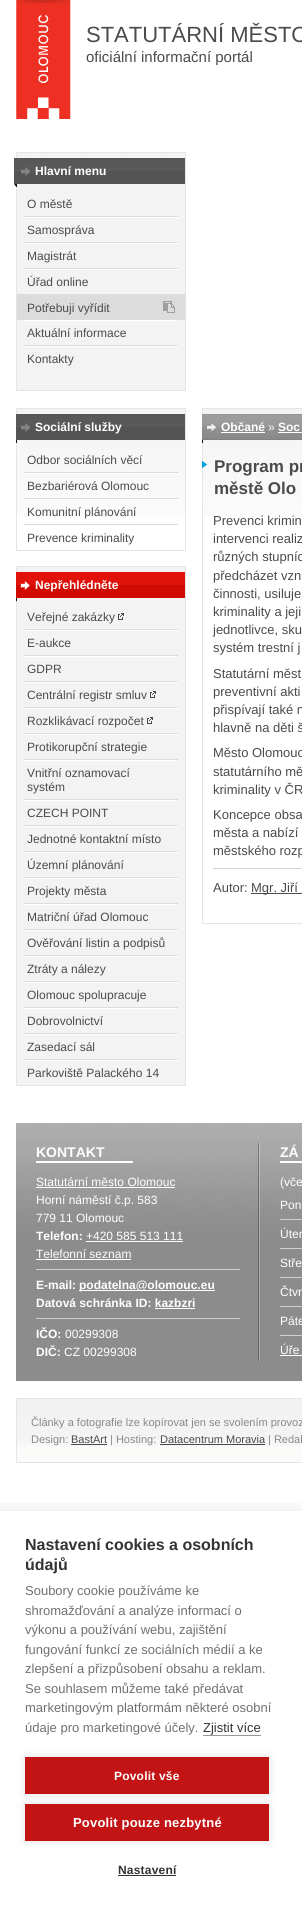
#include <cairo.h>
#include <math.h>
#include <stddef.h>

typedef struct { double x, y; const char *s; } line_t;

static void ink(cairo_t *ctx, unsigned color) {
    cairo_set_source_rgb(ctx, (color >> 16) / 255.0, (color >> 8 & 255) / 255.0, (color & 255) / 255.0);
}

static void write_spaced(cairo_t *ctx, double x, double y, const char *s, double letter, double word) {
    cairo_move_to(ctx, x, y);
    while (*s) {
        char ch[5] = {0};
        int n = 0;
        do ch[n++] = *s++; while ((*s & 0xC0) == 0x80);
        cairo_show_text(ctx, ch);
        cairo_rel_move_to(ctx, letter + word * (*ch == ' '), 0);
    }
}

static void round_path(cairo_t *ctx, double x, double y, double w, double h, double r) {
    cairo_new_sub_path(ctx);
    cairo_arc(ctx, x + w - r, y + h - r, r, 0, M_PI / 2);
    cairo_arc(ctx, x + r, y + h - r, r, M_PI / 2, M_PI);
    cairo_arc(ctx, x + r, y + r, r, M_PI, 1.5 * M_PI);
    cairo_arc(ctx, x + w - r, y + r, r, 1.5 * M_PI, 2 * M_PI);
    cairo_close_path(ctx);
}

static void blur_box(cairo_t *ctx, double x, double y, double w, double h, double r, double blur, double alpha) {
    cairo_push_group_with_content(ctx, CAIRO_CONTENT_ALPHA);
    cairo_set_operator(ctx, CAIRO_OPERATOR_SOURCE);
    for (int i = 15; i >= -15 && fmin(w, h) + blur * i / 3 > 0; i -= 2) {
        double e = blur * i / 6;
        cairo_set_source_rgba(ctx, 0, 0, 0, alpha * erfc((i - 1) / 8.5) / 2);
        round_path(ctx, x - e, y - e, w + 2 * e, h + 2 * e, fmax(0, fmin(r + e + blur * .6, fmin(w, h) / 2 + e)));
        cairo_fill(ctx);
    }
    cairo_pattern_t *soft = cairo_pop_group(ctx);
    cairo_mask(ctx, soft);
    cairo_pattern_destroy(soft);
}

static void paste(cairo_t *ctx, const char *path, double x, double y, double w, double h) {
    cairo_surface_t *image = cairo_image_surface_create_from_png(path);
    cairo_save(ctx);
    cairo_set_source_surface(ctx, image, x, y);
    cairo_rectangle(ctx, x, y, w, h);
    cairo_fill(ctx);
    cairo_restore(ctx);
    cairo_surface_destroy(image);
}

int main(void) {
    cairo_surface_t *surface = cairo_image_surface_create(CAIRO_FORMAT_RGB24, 302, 1913);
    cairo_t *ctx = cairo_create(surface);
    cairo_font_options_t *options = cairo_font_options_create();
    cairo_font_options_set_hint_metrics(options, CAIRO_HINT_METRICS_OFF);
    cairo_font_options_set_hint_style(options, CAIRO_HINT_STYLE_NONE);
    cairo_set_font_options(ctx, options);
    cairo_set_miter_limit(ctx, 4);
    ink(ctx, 0xFFFFFF);
    cairo_paint(ctx);
    paste(ctx, "media/1.png", 16, 0, 60, 119);
    cairo_select_font_face(ctx, "Liberation Sans", CAIRO_FONT_SLANT_NORMAL, CAIRO_FONT_WEIGHT_NORMAL);
    cairo_set_font_size(ctx, 22);
    ink(ctx, 0x4B4B4B);
    cairo_move_to(ctx, 86, 42);
    cairo_show_text(ctx, "STATUTÁRNÍ MĚSTO");
    cairo_set_font_size(ctx, 15);
    cairo_move_to(ctx, 86, 62);
    cairo_show_text(ctx, "oficiální informační portál");
    ink(ctx, 0xF3F3F3);
    cairo_rectangle(ctx, 16.5, 152.5, 169, 238);
    cairo_fill_preserve(ctx);
    ink(ctx, 0xE5E5E5);
    cairo_set_line_width(ctx, 1);
    cairo_stroke(ctx);
    paste(ctx, "media/2.png", 31, 158, 154, 26);
    paste(ctx, "media/3.png", 14, 158, 17, 29);
    cairo_select_font_face(ctx, "Liberation Sans", CAIRO_FONT_SLANT_NORMAL, CAIRO_FONT_WEIGHT_BOLD);
    cairo_set_font_size(ctx, 12);
    ink(ctx, 0xFFFFFF);
    cairo_move_to(ctx, 35, 175);
    cairo_show_text(ctx, "Hlavní menu");
    cairo_select_font_face(ctx, "Liberation Sans", CAIRO_FONT_SLANT_NORMAL, CAIRO_FONT_WEIGHT_NORMAL);
    ink(ctx, 0x4B4B4B);
    cairo_move_to(ctx, 27, 208);
    cairo_show_text(ctx, "O městě");
    paste(ctx, "media/4.png", 24, 216, 154, 2);
    cairo_move_to(ctx, 27, 234);
    cairo_show_text(ctx, "Samospráva");
    paste(ctx, "media/4.png", 24, 242, 154, 2);
    cairo_move_to(ctx, 27, 260);
    cairo_show_text(ctx, "Magistrát");
    paste(ctx, "media/4.png", 24, 268, 154, 2);
    cairo_move_to(ctx, 27, 286);
    cairo_show_text(ctx, "Úřad online");
    ink(ctx, 0xDCDCDC);
    cairo_rectangle(ctx, 17, 294, 168, 26);
    cairo_fill(ctx);
    paste(ctx, "media/5.png", 163, 301, 12, 12);
    ink(ctx, 0x4B4B4B);
    cairo_move_to(ctx, 27, 312);
    cairo_show_text(ctx, "Potřebuji vyřídit");
    ink(ctx, 0xFFFFFF);
    cairo_rectangle(ctx, 24, 320, 154, 1);
    cairo_fill(ctx);
    ink(ctx, 0x4B4B4B);
    cairo_move_to(ctx, 27, 337);
    cairo_show_text(ctx, "Aktuální informace");
    paste(ctx, "media/4.png", 24, 345, 154, 2);
    cairo_move_to(ctx, 27, 363);
    cairo_show_text(ctx, "Kontakty");
    paste(ctx, "media/6.png", 17, 409, 168, 108);
    cairo_rectangle(ctx, 16.5, 408.5, 169, 142);
    ink(ctx, 0xE5E5E5);
    cairo_stroke(ctx);
    paste(ctx, "media/2.png", 31, 414, 154, 26);
    paste(ctx, "media/7.png", 16, 414, 15, 29);
    cairo_select_font_face(ctx, "Liberation Sans", CAIRO_FONT_SLANT_NORMAL, CAIRO_FONT_WEIGHT_BOLD);
    ink(ctx, 0xFFFFFF);
    cairo_move_to(ctx, 35, 431);
    cairo_show_text(ctx, "Sociální služby");
    cairo_select_font_face(ctx, "Liberation Sans", CAIRO_FONT_SLANT_NORMAL, CAIRO_FONT_WEIGHT_NORMAL);
    ink(ctx, 0x4B4B4B);
    cairo_move_to(ctx, 27, 464);
    cairo_show_text(ctx, "Odbor sociálních věcí");
    paste(ctx, "media/4.png", 24, 472, 154, 2);
    cairo_move_to(ctx, 27, 490);
    cairo_show_text(ctx, "Bezbariérová Olomouc");
    paste(ctx, "media/4.png", 24, 498, 154, 2);
    cairo_move_to(ctx, 27, 516);
    cairo_show_text(ctx, "Komunitní plánování");
    ink(ctx, 0xDCDCDC);
    cairo_rectangle(ctx, 24, 524, 154, 1);
    cairo_fill(ctx);
    ink(ctx, 0x4B4B4B);
    cairo_move_to(ctx, 27, 542);
    cairo_show_text(ctx, "Prevence kriminality");
    ink(ctx, 0xF3F3F3);
    cairo_rectangle(ctx, 16.5, 566.5, 169, 519);
    cairo_fill_preserve(ctx);
    ink(ctx, 0xE5E5E5);
    cairo_stroke(ctx);
    paste(ctx, "media/8.png", 30, 572, 155, 26);
    paste(ctx, "media/9.png", 16, 572, 14, 31);
    cairo_select_font_face(ctx, "Liberation Sans", CAIRO_FONT_SLANT_NORMAL, CAIRO_FONT_WEIGHT_BOLD);
    ink(ctx, 0xFFFFFF);
    cairo_move_to(ctx, 35, 589);
    cairo_show_text(ctx, "Nepřehlédněte");
    cairo_select_font_face(ctx, "Liberation Sans", CAIRO_FONT_SLANT_NORMAL, CAIRO_FONT_WEIGHT_NORMAL);
    ink(ctx, 0x4B4B4B);
    cairo_move_to(ctx, 27, 621);
    cairo_show_text(ctx, "Veřejné zakázky");
    paste(ctx, "media/10.png", 118, 613, 6, 7);
    paste(ctx, "media/4.png", 24, 629, 154, 2);
    cairo_move_to(ctx, 27, 647);
    cairo_show_text(ctx, "E-aukce");
    paste(ctx, "media/4.png", 24, 655, 154, 2);
    cairo_move_to(ctx, 27, 673);
    cairo_show_text(ctx, "GDPR");
    paste(ctx, "media/4.png", 24, 681, 154, 2);
    cairo_move_to(ctx, 27, 699);
    cairo_show_text(ctx, "Centrální registr smluv");
    paste(ctx, "media/10.png", 150, 691, 6, 7);
    paste(ctx, "media/4.png", 24, 707, 154, 2);
    cairo_move_to(ctx, 27, 725);
    cairo_show_text(ctx, "Rozklikávací rozpočet");
    paste(ctx, "media/10.png", 147, 717, 6, 7);
    paste(ctx, "media/4.png", 24, 733, 154, 2);
    cairo_move_to(ctx, 27, 751);
    cairo_show_text(ctx, "Protikorupční strategie");
    paste(ctx, "media/4.png", 24, 759, 154, 2);
    cairo_move_to(ctx, 27, 777);
    cairo_show_text(ctx, "Vnitřní oznamovací");
    cairo_move_to(ctx, 27, 791);
    cairo_show_text(ctx, "systém");
    paste(ctx, "media/4.png", 24, 799, 154, 2);
    cairo_move_to(ctx, 27, 817);
    cairo_show_text(ctx, "CZECH POINT");
    paste(ctx, "media/4.png", 24, 825, 154, 2);
    cairo_move_to(ctx, 27, 843);
    cairo_show_text(ctx, "Jednotné kontaktní místo");
    paste(ctx, "media/4.png", 24, 851, 154, 2);
    cairo_move_to(ctx, 27, 869);
    cairo_show_text(ctx, "Územní plánování");
    paste(ctx, "media/4.png", 24, 877, 154, 2);
    cairo_move_to(ctx, 27, 895);
    cairo_show_text(ctx, "Projekty města");
    paste(ctx, "media/4.png", 24, 903, 154, 2);
    cairo_move_to(ctx, 27, 921);
    cairo_show_text(ctx, "Matriční úřad Olomouc");
    paste(ctx, "media/4.png", 24, 929, 154, 2);
    cairo_move_to(ctx, 27, 947);
    cairo_show_text(ctx, "Ověřování listin a podpisů");
    paste(ctx, "media/4.png", 24, 955, 154, 2);
    cairo_move_to(ctx, 27, 973);
    cairo_show_text(ctx, "Ztráty a nálezy");
    paste(ctx, "media/4.png", 24, 981, 154, 2);
    cairo_move_to(ctx, 27, 999);
    cairo_show_text(ctx, "Olomouc spolupracuje");
    paste(ctx, "media/4.png", 24, 1007, 154, 2);
    cairo_move_to(ctx, 27, 1025);
    cairo_show_text(ctx, "Dobrovolnictví");
    paste(ctx, "media/4.png", 24, 1033, 154, 2);
    cairo_move_to(ctx, 27, 1051);
    cairo_show_text(ctx, "Zasedací sál");
    paste(ctx, "media/4.png", 24, 1059, 154, 2);
    cairo_move_to(ctx, 27, 1077);
    cairo_show_text(ctx, "Parkoviště Palackého 14");
    paste(ctx, "media/11.png", 203, 409, 99, 108);
    cairo_rectangle(ctx, 202.5, 408.5, 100, 515);
    ink(ctx, 0xE5E5E5);
    cairo_stroke(ctx);
    paste(ctx, "media/12.png", 218, 414, 84, 26);
    paste(ctx, "media/13.png", 202, 414, 16, 31);
    cairo_select_font_face(ctx, "Liberation Sans", CAIRO_FONT_SLANT_NORMAL, CAIRO_FONT_WEIGHT_BOLD);
    ink(ctx, 0xFFFFFF);
    cairo_move_to(ctx, 221, 431);
    cairo_show_text(ctx, "Občané");
    cairo_rectangle(ctx, 221, 432, 44, 1);
    cairo_fill(ctx);
    cairo_select_font_face(ctx, "Liberation Sans", CAIRO_FONT_SLANT_NORMAL, CAIRO_FONT_WEIGHT_NORMAL);
    cairo_move_to(ctx, 268, 431);
    cairo_show_text(ctx, "»");
    cairo_select_font_face(ctx, "Liberation Sans", CAIRO_FONT_SLANT_NORMAL, CAIRO_FONT_WEIGHT_BOLD);
    cairo_move_to(ctx, 278, 431);
    cairo_show_text(ctx, "Soc");
    cairo_rectangle(ctx, 278, 432, 24, 1);
    cairo_fill(ctx);
    paste(ctx, "media/14.png", 202, 461, 5, 7);
    cairo_set_font_size(ctx, 17);
    ink(ctx, 0x4B4B4B);
    cairo_move_to(ctx, 214, 472);
    cairo_show_text(ctx, "Program pr");
    cairo_move_to(ctx, 214, 494);
    cairo_show_text(ctx, "městě Olo");
    cairo_select_font_face(ctx, "Liberation Sans", CAIRO_FONT_SLANT_NORMAL, CAIRO_FONT_WEIGHT_NORMAL);
    cairo_set_font_size(ctx, 13);
    {
        static const line_t items[] = {
            {213, 525, "Prevenci krimin"},
            {213, 543, "intervenci realiz"},
            {213, 561, "různých stupníc"},
            {213, 580, "předcházet vzn"},
            {213, 598, "činnosti, usiluje"},
            {213, 616, "kriminality a jeji"},
            {213, 634, "jednotlivce, sku"},
            {213, 652, "systém trestní j"},
            {213, 678, "Statutární měst"},
            {213, 696, "preventivní akti"},
            {213, 714, "přispívají také n"},
            {213, 732, "hlavně na děti š"},
            {213, 757, "Město Olomouc"},
            {213, 776, "statutárního mě"},
            {213, 794, "kriminality v ČR"},
            {213, 819, "Koncepce obsa"},
            {213, 837, "města a nabízí"},
            {213, 855, "městského rozp"},
        };
        for (size_t i = 0; i < sizeof items / sizeof *items; i++) {
            cairo_move_to(ctx, items[i].x, items[i].y);
            cairo_show_text(ctx, items[i].s);
        }
    }
    ink(ctx, 0xD3D3D3);
    cairo_rectangle(ctx, 213, 868, 89, 1);
    cairo_fill(ctx);
    ink(ctx, 0x4B4B4B);
    cairo_move_to(ctx, 213, 892);
    cairo_show_text(ctx, "Autor:");
    cairo_rectangle(ctx, 251, 893, 51, 1);
    cairo_fill(ctx);
    cairo_move_to(ctx, 251, 892);
    cairo_show_text(ctx, "Mgr. Jiří");
    paste(ctx, "media/15.png", 16, 1123, 286, 258);
    paste(ctx, "media/16.png", 258, 1143, 2, 218);
    ink(ctx, 0xFFFFFF);
    cairo_rectangle(ctx, 36, 1161, 97, 2);
    cairo_fill(ctx);
    cairo_select_font_face(ctx, "Liberation Sans", CAIRO_FONT_SLANT_NORMAL, CAIRO_FONT_WEIGHT_BOLD);
    cairo_set_font_size(ctx, 14);
    cairo_move_to(ctx, 36, 1157);
    cairo_show_text(ctx, "KONTAKT");
    cairo_select_font_face(ctx, "Liberation Sans", CAIRO_FONT_SLANT_NORMAL, CAIRO_FONT_WEIGHT_NORMAL);
    cairo_set_font_size(ctx, 12);
    cairo_move_to(ctx, 36, 1186);
    cairo_show_text(ctx, "Statutární město Olomouc");
    cairo_rectangle(ctx, 36, 1187, 139, 1);
    cairo_fill(ctx);
    cairo_move_to(ctx, 36, 1204);
    cairo_show_text(ctx, "Horní náměstí č.p. 583");
    cairo_move_to(ctx, 36, 1222);
    cairo_show_text(ctx, "779 11 Olomouc");
    cairo_select_font_face(ctx, "Liberation Sans", CAIRO_FONT_SLANT_NORMAL, CAIRO_FONT_WEIGHT_BOLD);
    cairo_move_to(ctx, 36, 1240);
    cairo_show_text(ctx, "Telefon:");
    cairo_select_font_face(ctx, "Liberation Sans", CAIRO_FONT_SLANT_NORMAL, CAIRO_FONT_WEIGHT_NORMAL);
    cairo_move_to(ctx, 86, 1240);
    cairo_show_text(ctx, "+420 585 513 111");
    cairo_rectangle(ctx, 86, 1241, 97, 1);
    cairo_fill(ctx);
    cairo_move_to(ctx, 36, 1258);
    cairo_show_text(ctx, "Telefonní seznam");
    cairo_rectangle(ctx, 36, 1259, 95, 1);
    cairo_fill(ctx);
    ink(ctx, 0xD0D0D0);
    cairo_rectangle(ctx, 36, 1269, 204, 1);
    cairo_fill(ctx);
    cairo_select_font_face(ctx, "Liberation Sans", CAIRO_FONT_SLANT_NORMAL, CAIRO_FONT_WEIGHT_BOLD);
    ink(ctx, 0xFFFFFF);
    cairo_move_to(ctx, 36, 1289);
    cairo_show_text(ctx, "E-mail:");
    cairo_rectangle(ctx, 79, 1290, 136, 1);
    cairo_fill(ctx);
    cairo_move_to(ctx, 79, 1289);
    cairo_show_text(ctx, "podatelna@olomouc.eu");
    cairo_move_to(ctx, 36, 1307);
    cairo_show_text(ctx, "Datová schránka ID: kazbzri");
    cairo_rectangle(ctx, 155, 1308, 40, 1);
    cairo_fill(ctx);
    ink(ctx, 0xD0D0D0);
    cairo_rectangle(ctx, 36, 1318, 204, 1);
    cairo_fill(ctx);
    ink(ctx, 0xFFFFFF);
    cairo_move_to(ctx, 36, 1338);
    cairo_show_text(ctx, "IČO:");
    cairo_select_font_face(ctx, "Liberation Sans", CAIRO_FONT_SLANT_NORMAL, CAIRO_FONT_WEIGHT_NORMAL);
    cairo_move_to(ctx, 65, 1338);
    cairo_show_text(ctx, "00299308");
    cairo_select_font_face(ctx, "Liberation Sans", CAIRO_FONT_SLANT_NORMAL, CAIRO_FONT_WEIGHT_BOLD);
    cairo_move_to(ctx, 36, 1356);
    cairo_show_text(ctx, "DIČ:");
    cairo_select_font_face(ctx, "Liberation Sans", CAIRO_FONT_SLANT_NORMAL, CAIRO_FONT_WEIGHT_NORMAL);
    cairo_move_to(ctx, 64, 1356);
    cairo_show_text(ctx, "CZ 00299308");
    cairo_rectangle(ctx, 280, 1161, 22, 2);
    cairo_fill(ctx);
    cairo_select_font_face(ctx, "Liberation Sans", CAIRO_FONT_SLANT_NORMAL, CAIRO_FONT_WEIGHT_BOLD);
    cairo_set_font_size(ctx, 14);
    cairo_move_to(ctx, 280, 1157);
    cairo_show_text(ctx, "ZÁ");
    cairo_select_font_face(ctx, "Liberation Sans", CAIRO_FONT_SLANT_NORMAL, CAIRO_FONT_WEIGHT_NORMAL);
    cairo_set_font_size(ctx, 12);
    cairo_move_to(ctx, 280, 1186);
    cairo_show_text(ctx, "(vče");
    ink(ctx, 0xD0D0D0);
    cairo_rectangle(ctx, 280, 1219, 22, 1);
    cairo_fill(ctx);
    ink(ctx, 0xFFFFFF);
    cairo_move_to(ctx, 280, 1209);
    cairo_show_text(ctx, "Pon");
    ink(ctx, 0xD0D0D0);
    cairo_rectangle(ctx, 280, 1248, 22, 1);
    cairo_fill(ctx);
    ink(ctx, 0xFFFFFF);
    cairo_move_to(ctx, 280, 1238);
    cairo_show_text(ctx, "Úter");
    ink(ctx, 0xD0D0D0);
    cairo_rectangle(ctx, 280, 1277, 22, 1);
    cairo_fill(ctx);
    ink(ctx, 0xFFFFFF);
    cairo_move_to(ctx, 280, 1267);
    cairo_show_text(ctx, "Stře");
    ink(ctx, 0xD0D0D0);
    cairo_rectangle(ctx, 280, 1306, 22, 1);
    cairo_fill(ctx);
    ink(ctx, 0xFFFFFF);
    cairo_move_to(ctx, 280, 1296);
    cairo_show_text(ctx, "Čtvr");
    ink(ctx, 0xD0D0D0);
    cairo_rectangle(ctx, 280, 1335, 22, 1);
    cairo_fill(ctx);
    ink(ctx, 0xFFFFFF);
    cairo_move_to(ctx, 280, 1325);
    cairo_show_text(ctx, "Páte");
    cairo_move_to(ctx, 280, 1354);
    cairo_show_text(ctx, "Úře");
    cairo_rectangle(ctx, 280, 1355, 22, 1);
    cairo_fill(ctx);
    ink(ctx, 0xFBFBFA);
    cairo_rectangle(ctx, 17, 1446, 285, 16);
    cairo_fill(ctx);
    paste(ctx, "media/17.png", 17, 1399, 285, 47);
    cairo_rectangle(ctx, 16.5, 1398.5, 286, 64);
    ink(ctx, 0xE5E5E5);
    cairo_stroke(ctx);
    cairo_set_font_size(ctx, 11);
    ink(ctx, 0x888888);
    cairo_move_to(ctx, 31, 1426);
    cairo_show_text(ctx, "Články a fotografie lze kopírovat jen se svolením provoz");
    cairo_move_to(ctx, 31, 1443);
    cairo_show_text(ctx, "Design:");
    ink(ctx, 0x4B4B4B);
    cairo_move_to(ctx, 71, 1443);
    cairo_show_text(ctx, "BastArt");
    cairo_rectangle(ctx, 71, 1444, 36, 1);
    cairo_fill(ctx);
    ink(ctx, 0x888888);
    cairo_move_to(ctx, 110, 1443);
    cairo_show_text(ctx, "| Hosting:");
    ink(ctx, 0x4B4B4B);
    cairo_move_to(ctx, 160, 1443);
    cairo_show_text(ctx, "Datacentrum Moravia");
    cairo_rectangle(ctx, 160, 1444, 105, 1);
    cairo_fill(ctx);
    ink(ctx, 0x888888);
    cairo_move_to(ctx, 268, 1443);
    cairo_show_text(ctx, "| Redak");
    cairo_save(ctx);
    cairo_rectangle(ctx, 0, 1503, 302, 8);
    cairo_clip(ctx);
    ink(ctx, 0x000000);
    blur_box(ctx, 0, 1511, 302, 402, 0, 10, 0.1);
    cairo_restore(ctx);
    cairo_select_font_face(ctx, "Liberation Sans", CAIRO_FONT_SLANT_NORMAL, CAIRO_FONT_WEIGHT_BOLD);
    cairo_set_font_size(ctx, 16);
    ink(ctx, 0x333333);
    cairo_move_to(ctx, 25, 1550);
    cairo_show_text(ctx, "Nastavení cookies a osobních");
    cairo_move_to(ctx, 25, 1570);
    cairo_show_text(ctx, "údajů");
    cairo_select_font_face(ctx, "Liberation Sans", CAIRO_FONT_SLANT_NORMAL, CAIRO_FONT_WEIGHT_NORMAL);
    cairo_set_font_size(ctx, 13);
    ink(ctx, 0x707070);
    {
        static const line_t items[] = {
            {25, 1595, "Soubory cookie používáme ke"},
            {25, 1615, "shromažďování a analýze informací o"},
            {25, 1634, "výkonu a používání webu, zajištění"},
            {25, 1654, "fungování funkcí ze sociálních médií a ke"},
            {25, 1673, "zlepšení a přizpůsobení obsahu a reklam."},
            {25, 1693, "Se souhlasem můžeme také předávat"},
            {25, 1712, "marketingovým platformám některé osobní"},
            {25, 1732, "údaje pro marketingové účely."},
        };
        for (size_t i = 0; i < sizeof items / sizeof *items; i++) {
            cairo_move_to(ctx, items[i].x, items[i].y);
            cairo_show_text(ctx, items[i].s);
        }
    }
    ink(ctx, 0x333333);
    cairo_move_to(ctx, 203, 1732);
    cairo_show_text(ctx, "Zjistit více");
    ink(ctx, 0x999999);
    cairo_rectangle(ctx, 203, 1735, 58, 1);
    cairo_fill(ctx);
    ink(ctx, 0x000000);
    blur_box(ctx, 25, 1757, 244, 37, 0, 5, 0.12);
    ink(ctx, 0xC21415);
    cairo_rectangle(ctx, 25, 1757, 244, 37);
    cairo_fill(ctx);
    cairo_select_font_face(ctx, "Liberation Sans", CAIRO_FONT_SLANT_NORMAL, CAIRO_FONT_WEIGHT_BOLD);
    cairo_set_font_size(ctx, 12);
    ink(ctx, 0xFFFFFF);
    write_spaced(ctx, 114, 1780, "Povolit vše", 0.2, 0);
    ink(ctx, 0x000000);
    blur_box(ctx, 25, 1804, 244, 37, 0, 5, 0.12);
    ink(ctx, 0xC21415);
    cairo_rectangle(ctx, 25, 1804, 244, 37);
    cairo_fill(ctx);
    cairo_set_font_size(ctx, 13);
    ink(ctx, 0xFFFFFF);
    write_spaced(ctx, 73, 1827, "Povolit pouze nezbytné", 0.2, 0);
    cairo_set_font_size(ctx, 12);
    ink(ctx, 0x333333);
    write_spaced(ctx, 118, 1874, "Nastavení", 0.2, 0);
    cairo_rectangle(ctx, 118, 1875, 58, 1);
    cairo_fill(ctx);
    cairo_surface_write_to_png(surface, "image.png");
    cairo_font_options_destroy(options);
    cairo_destroy(ctx);
    cairo_surface_destroy(surface);
    return 0;
}
